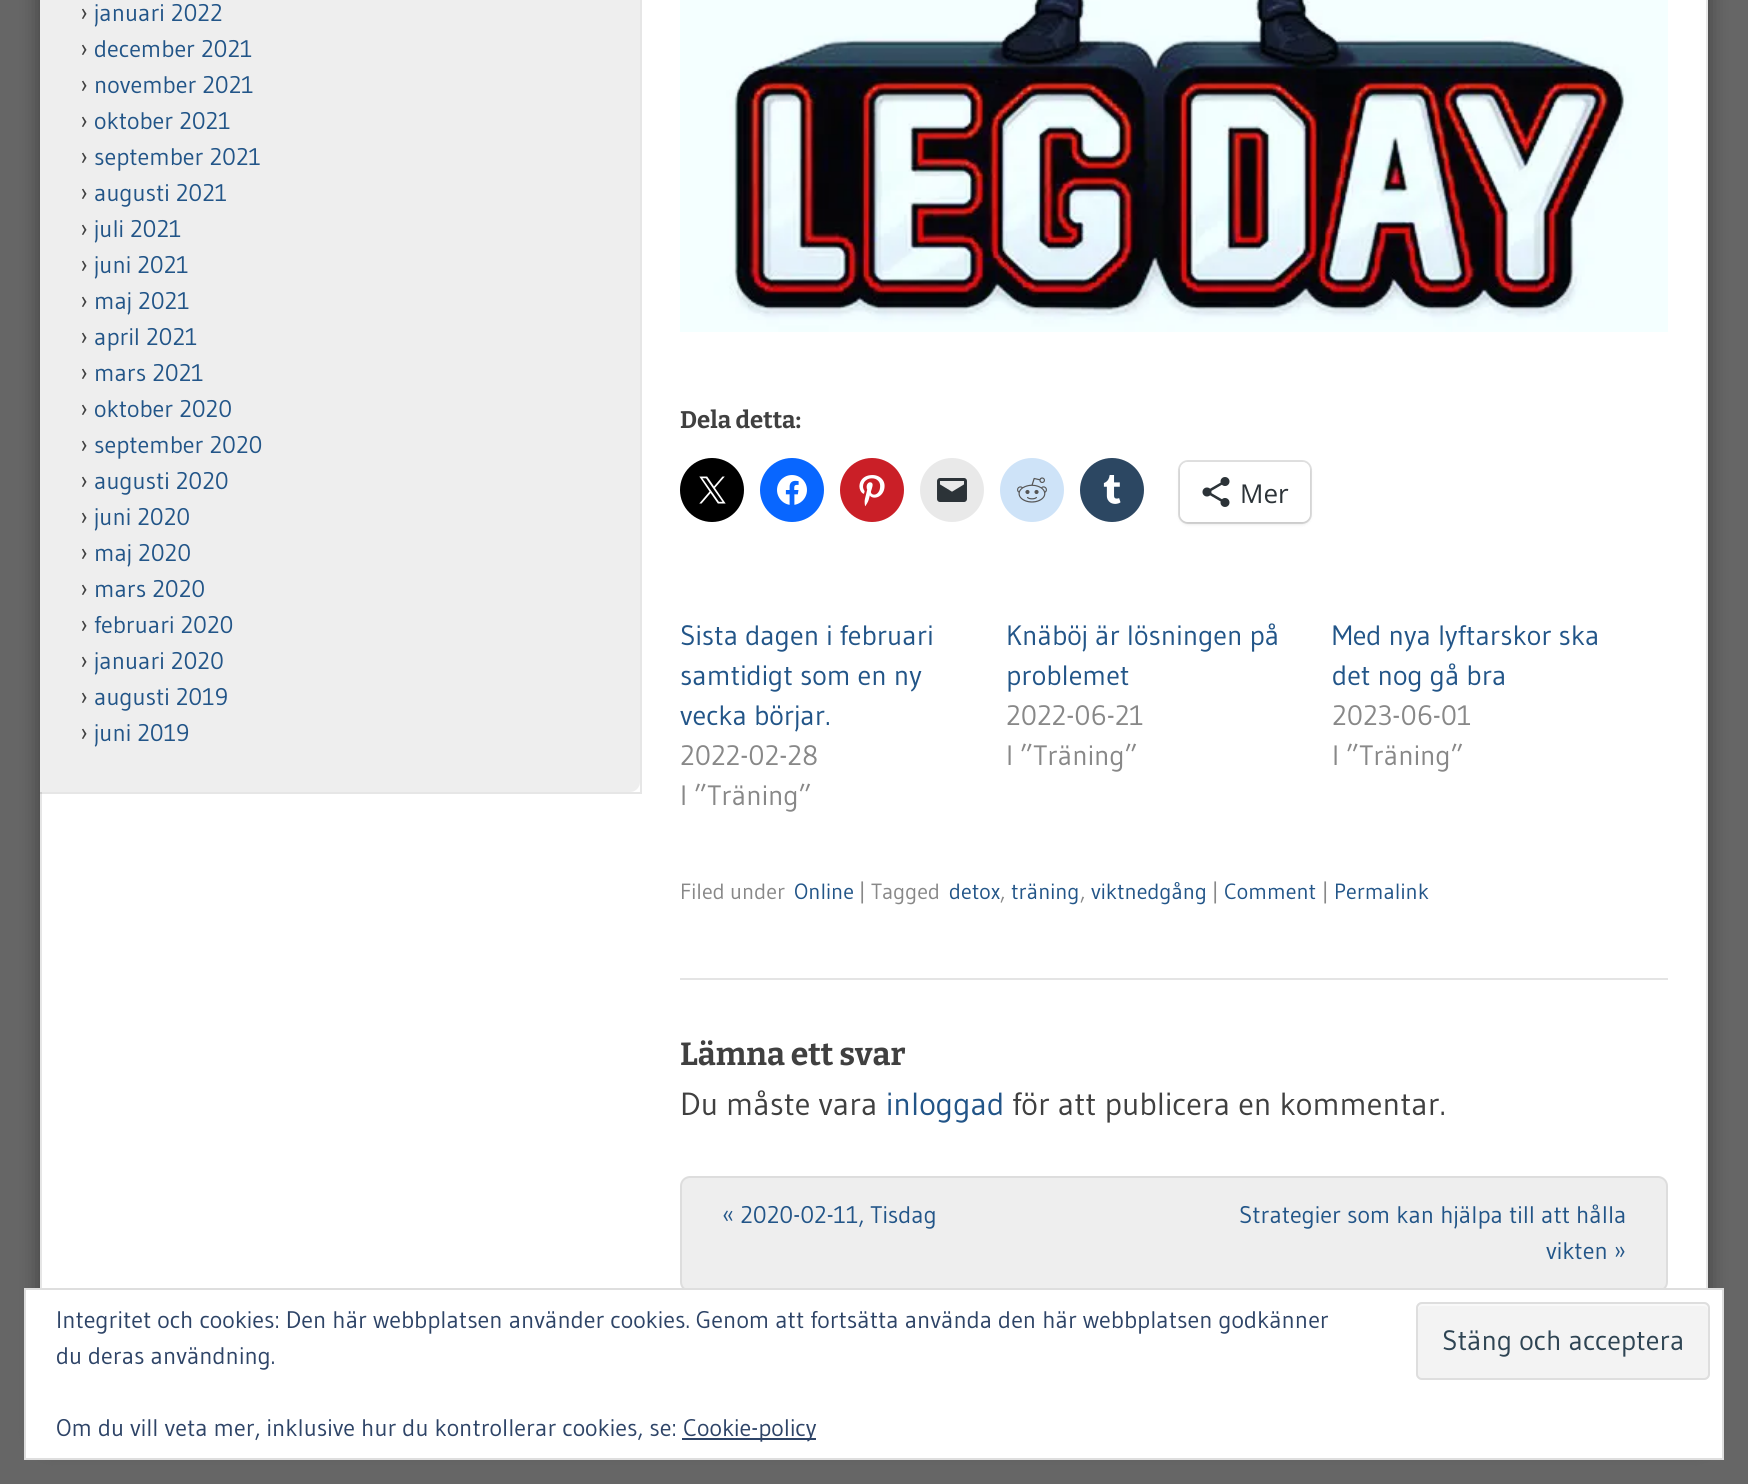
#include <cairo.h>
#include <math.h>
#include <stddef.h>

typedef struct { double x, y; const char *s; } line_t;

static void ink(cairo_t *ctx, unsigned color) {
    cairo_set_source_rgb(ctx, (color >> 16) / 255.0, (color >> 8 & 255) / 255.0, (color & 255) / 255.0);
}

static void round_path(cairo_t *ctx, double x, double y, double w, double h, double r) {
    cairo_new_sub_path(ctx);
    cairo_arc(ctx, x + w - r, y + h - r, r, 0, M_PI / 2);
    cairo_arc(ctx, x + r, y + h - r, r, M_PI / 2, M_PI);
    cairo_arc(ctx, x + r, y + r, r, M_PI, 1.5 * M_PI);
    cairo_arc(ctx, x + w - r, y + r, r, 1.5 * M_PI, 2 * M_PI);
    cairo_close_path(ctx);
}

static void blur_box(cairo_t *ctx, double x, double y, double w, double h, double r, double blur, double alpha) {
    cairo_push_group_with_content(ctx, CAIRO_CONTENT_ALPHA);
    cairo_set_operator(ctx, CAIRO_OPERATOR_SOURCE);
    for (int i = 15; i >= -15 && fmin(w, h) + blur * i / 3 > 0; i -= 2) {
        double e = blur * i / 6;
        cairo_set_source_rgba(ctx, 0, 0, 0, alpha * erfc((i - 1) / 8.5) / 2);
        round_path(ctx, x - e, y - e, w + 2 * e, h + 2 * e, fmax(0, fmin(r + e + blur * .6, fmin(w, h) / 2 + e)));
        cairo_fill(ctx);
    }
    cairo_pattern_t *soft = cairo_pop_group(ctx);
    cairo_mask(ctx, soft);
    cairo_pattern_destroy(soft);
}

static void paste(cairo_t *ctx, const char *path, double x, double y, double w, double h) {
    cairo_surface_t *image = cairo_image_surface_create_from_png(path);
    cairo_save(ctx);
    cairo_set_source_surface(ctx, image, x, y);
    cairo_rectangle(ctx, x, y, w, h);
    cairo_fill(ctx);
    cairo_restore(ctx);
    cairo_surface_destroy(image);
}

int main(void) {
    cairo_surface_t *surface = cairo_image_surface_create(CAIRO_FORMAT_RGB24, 1748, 1484);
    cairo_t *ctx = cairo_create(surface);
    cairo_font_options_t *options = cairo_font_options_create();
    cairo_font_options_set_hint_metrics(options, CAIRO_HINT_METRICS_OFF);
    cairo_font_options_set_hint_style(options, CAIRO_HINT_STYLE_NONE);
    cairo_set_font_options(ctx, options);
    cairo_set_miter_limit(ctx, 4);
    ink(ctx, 0x666666);
    cairo_paint(ctx);
    ink(ctx, 0x000000);
    blur_box(ctx, 40, -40, 1668, 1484, 10, 10, 0.4);
    ink(ctx, 0xFFFFFF);
    cairo_rectangle(ctx, 42, 0, 1664, 1288);
    cairo_fill(ctx);
    cairo_rectangle(ctx, 41, -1, 1666, 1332);
    ink(ctx, 0xE6E6E6);
    cairo_stroke(ctx);
    cairo_set_source_rgba(ctx, 0, 0, 0, 0.1);
    cairo_new_path(ctx);
    cairo_move_to(ctx, 40, -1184);
    cairo_line_to(ctx, 640, -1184);
    cairo_line_to(ctx, 640, 792);
    cairo_line_to(ctx, 40, 792);
    cairo_line_to(ctx, 40, 794);
    cairo_line_to(ctx, 642, 794);
    cairo_line_to(ctx, 642, -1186);
    cairo_line_to(ctx, 40, -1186);
    cairo_close_path(ctx);
    cairo_fill(ctx);
    ink(ctx, 0xEEEEEE);
    cairo_new_path(ctx);
    cairo_move_to(ctx, 40, -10);
    cairo_line_to(ctx, 640, -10);
    cairo_line_to(ctx, 640, 782);
    cairo_curve_to(ctx, 640, 787.5, 635.5, 792, 630, 792);
    cairo_line_to(ctx, 40, 792);
    cairo_close_path(ctx);
    cairo_fill(ctx);
    cairo_select_font_face(ctx, "Gudea", CAIRO_FONT_SLANT_NORMAL, CAIRO_FONT_WEIGHT_NORMAL);
    cairo_set_font_size(ctx, 24);
    ink(ctx, 0x404040);
    cairo_move_to(ctx, 80, 21);
    cairo_show_text(ctx, "›");
    ink(ctx, 0x225588);
    cairo_move_to(ctx, 94, 21);
    cairo_show_text(ctx, "januari 2022");
    ink(ctx, 0x404040);
    cairo_move_to(ctx, 80, 57);
    cairo_show_text(ctx, "›");
    ink(ctx, 0x225588);
    cairo_move_to(ctx, 94, 57);
    cairo_show_text(ctx, "december 2021");
    ink(ctx, 0x404040);
    cairo_move_to(ctx, 80, 93);
    cairo_show_text(ctx, "›");
    ink(ctx, 0x225588);
    cairo_move_to(ctx, 94, 93);
    cairo_show_text(ctx, "november 2021");
    ink(ctx, 0x404040);
    cairo_move_to(ctx, 80, 129);
    cairo_show_text(ctx, "›");
    ink(ctx, 0x225588);
    cairo_move_to(ctx, 94, 129);
    cairo_show_text(ctx, "oktober 2021");
    ink(ctx, 0x404040);
    cairo_move_to(ctx, 80, 165);
    cairo_show_text(ctx, "›");
    ink(ctx, 0x225588);
    cairo_move_to(ctx, 94, 165);
    cairo_show_text(ctx, "september 2021");
    ink(ctx, 0x404040);
    cairo_move_to(ctx, 80, 201);
    cairo_show_text(ctx, "›");
    ink(ctx, 0x225588);
    cairo_move_to(ctx, 94, 201);
    cairo_show_text(ctx, "augusti 2021");
    ink(ctx, 0x404040);
    cairo_move_to(ctx, 80, 237);
    cairo_show_text(ctx, "›");
    ink(ctx, 0x225588);
    cairo_move_to(ctx, 94, 237);
    cairo_show_text(ctx, "juli 2021");
    ink(ctx, 0x404040);
    cairo_move_to(ctx, 80, 273);
    cairo_show_text(ctx, "›");
    ink(ctx, 0x225588);
    cairo_move_to(ctx, 94, 273);
    cairo_show_text(ctx, "juni 2021");
    ink(ctx, 0x404040);
    cairo_move_to(ctx, 80, 309);
    cairo_show_text(ctx, "›");
    ink(ctx, 0x225588);
    cairo_move_to(ctx, 94, 309);
    cairo_show_text(ctx, "maj 2021");
    ink(ctx, 0x404040);
    cairo_move_to(ctx, 80, 345);
    cairo_show_text(ctx, "›");
    ink(ctx, 0x225588);
    cairo_move_to(ctx, 94, 345);
    cairo_show_text(ctx, "april 2021");
    ink(ctx, 0x404040);
    cairo_move_to(ctx, 80, 381);
    cairo_show_text(ctx, "›");
    ink(ctx, 0x225588);
    cairo_move_to(ctx, 94, 381);
    cairo_show_text(ctx, "mars 2021");
    ink(ctx, 0x404040);
    cairo_move_to(ctx, 80, 417);
    cairo_show_text(ctx, "›");
    ink(ctx, 0x225588);
    cairo_move_to(ctx, 94, 417);
    cairo_show_text(ctx, "oktober 2020");
    ink(ctx, 0x404040);
    cairo_move_to(ctx, 80, 453);
    cairo_show_text(ctx, "›");
    ink(ctx, 0x225588);
    cairo_move_to(ctx, 94, 453);
    cairo_show_text(ctx, "september 2020");
    ink(ctx, 0x404040);
    cairo_move_to(ctx, 80, 489);
    cairo_show_text(ctx, "›");
    ink(ctx, 0x225588);
    cairo_move_to(ctx, 94, 489);
    cairo_show_text(ctx, "augusti 2020");
    ink(ctx, 0x404040);
    cairo_move_to(ctx, 80, 525);
    cairo_show_text(ctx, "›");
    ink(ctx, 0x225588);
    cairo_move_to(ctx, 94, 525);
    cairo_show_text(ctx, "juni 2020");
    ink(ctx, 0x404040);
    cairo_move_to(ctx, 80, 561);
    cairo_show_text(ctx, "›");
    ink(ctx, 0x225588);
    cairo_move_to(ctx, 94, 561);
    cairo_show_text(ctx, "maj 2020");
    ink(ctx, 0x404040);
    cairo_move_to(ctx, 80, 597);
    cairo_show_text(ctx, "›");
    ink(ctx, 0x225588);
    cairo_move_to(ctx, 94, 597);
    cairo_show_text(ctx, "mars 2020");
    ink(ctx, 0x404040);
    cairo_move_to(ctx, 80, 633);
    cairo_show_text(ctx, "›");
    ink(ctx, 0x225588);
    cairo_move_to(ctx, 94, 633);
    cairo_show_text(ctx, "februari 2020");
    ink(ctx, 0x404040);
    cairo_move_to(ctx, 80, 669);
    cairo_show_text(ctx, "›");
    ink(ctx, 0x225588);
    cairo_move_to(ctx, 94, 669);
    cairo_show_text(ctx, "januari 2020");
    ink(ctx, 0x404040);
    cairo_move_to(ctx, 80, 705);
    cairo_show_text(ctx, "›");
    ink(ctx, 0x225588);
    cairo_move_to(ctx, 94, 705);
    cairo_show_text(ctx, "augusti 2019");
    ink(ctx, 0x404040);
    cairo_move_to(ctx, 80, 741);
    cairo_show_text(ctx, "›");
    ink(ctx, 0x225588);
    cairo_move_to(ctx, 94, 741);
    cairo_show_text(ctx, "juni 2019");
    ink(ctx, 0xE4E4E4);
    cairo_rectangle(ctx, 680, 978, 988, 2);
    cairo_fill(ctx);
    paste(ctx, "media/1.png", 680, 0, 988, 332);
    cairo_select_font_face(ctx, "Bitter Thin", CAIRO_FONT_SLANT_NORMAL, CAIRO_FONT_WEIGHT_NORMAL);
    ink(ctx, 0x404040);
    cairo_move_to(ctx, 680, 428);
    cairo_show_text(ctx, "Dela detta:");
    ink(ctx, 0x000000);
    cairo_new_path(ctx);
    cairo_arc(ctx, 712, 490, 32, 0, 2 * M_PI);
    cairo_fill(ctx);
    paste(ctx, "media/2.png", 699, 476, 27, 28);
    ink(ctx, 0x0866FF);
    cairo_arc(ctx, 792, 490, 32, 0, 2 * M_PI);
    cairo_fill(ctx);
    paste(ctx, "media/3.png", 777, 475, 30, 30);
    ink(ctx, 0xCA1F27);
    cairo_arc(ctx, 872, 490, 32, 0, 2 * M_PI);
    cairo_fill(ctx);
    paste(ctx, "media/4.png", 859, 475, 26, 32);
    ink(ctx, 0xE9E9E9);
    cairo_arc(ctx, 952, 490, 32, 0, 2 * M_PI);
    cairo_fill(ctx);
    paste(ctx, "media/5.png", 937, 478, 30, 24);
    ink(ctx, 0xCEE3F8);
    cairo_arc(ctx, 1032, 490, 32, 0, 2 * M_PI);
    cairo_fill(ctx);
    paste(ctx, "media/6.png", 1017, 477, 30, 26);
    ink(ctx, 0x2C4762);
    cairo_arc(ctx, 1112, 490, 32, 0, 2 * M_PI);
    cairo_fill(ctx);
    paste(ctx, "media/7.png", 1103, 475, 18, 29);
    round_path(ctx, 1179, 461, 132, 62, 9);
    ink(ctx, 0xE0E0E0);
    cairo_stroke(ctx);
    ink(ctx, 0x000000);
    blur_box(ctx, 1180, 464, 130, 60, 8, 2, 0.12);
    ink(ctx, 0xFFFFFF);
    round_path(ctx, 1180, 462, 130, 60, 8);
    cairo_fill(ctx);
    paste(ctx, "media/8.png", 1202, 477, 28, 30);
    cairo_select_font_face(ctx, "Open Sans", CAIRO_FONT_SLANT_NORMAL, CAIRO_FONT_WEIGHT_NORMAL);
    cairo_set_font_size(ctx, 26);
    ink(ctx, 0x2C3338);
    cairo_move_to(ctx, 1240, 503);
    cairo_show_text(ctx, "Mer");
    cairo_select_font_face(ctx, "Gudea", CAIRO_FONT_SLANT_NORMAL, CAIRO_FONT_WEIGHT_NORMAL);
    cairo_set_font_size(ctx, 28);
    ink(ctx, 0x225588);
    {
        static const line_t items[] = {
            {680, 645, "Sista dagen i februari"},
            {680, 685, "samtidigt som en ny"},
            {680, 725, "vecka börjar."},
        };
        for (size_t i = 0; i < sizeof items / sizeof *items; i++) {
            cairo_move_to(ctx, items[i].x, items[i].y);
            cairo_show_text(ctx, items[i].s);
        }
    }
    ink(ctx, 0x888888);
    cairo_move_to(ctx, 680, 765);
    cairo_show_text(ctx, "2022-02-28");
    cairo_move_to(ctx, 680, 805);
    cairo_show_text(ctx, "I ”Träning”");
    ink(ctx, 0x225588);
    cairo_move_to(ctx, 1006, 645);
    cairo_show_text(ctx, "Knäböj är lösningen på");
    cairo_move_to(ctx, 1006, 685);
    cairo_show_text(ctx, "problemet");
    ink(ctx, 0x888888);
    cairo_move_to(ctx, 1006, 725);
    cairo_show_text(ctx, "2022-06-21");
    cairo_move_to(ctx, 1006, 765);
    cairo_show_text(ctx, "I ”Träning”");
    ink(ctx, 0x225588);
    cairo_move_to(ctx, 1332, 645);
    cairo_show_text(ctx, "Med nya lyftarskor ska");
    cairo_move_to(ctx, 1332, 685);
    cairo_show_text(ctx, "det nog gå bra");
    ink(ctx, 0x888888);
    cairo_move_to(ctx, 1332, 725);
    cairo_show_text(ctx, "2023-06-01");
    cairo_move_to(ctx, 1332, 765);
    cairo_show_text(ctx, "I ”Träning”");
    cairo_set_font_size(ctx, 22);
    cairo_move_to(ctx, 680, 899);
    cairo_show_text(ctx, "Filed under");
    ink(ctx, 0x225588);
    cairo_move_to(ctx, 794, 899);
    cairo_show_text(ctx, "Online");
    ink(ctx, 0x888888);
    cairo_move_to(ctx, 859, 899);
    cairo_show_text(ctx, "| Tagged");
    ink(ctx, 0x225588);
    cairo_move_to(ctx, 949, 899);
    cairo_show_text(ctx, "detox");
    ink(ctx, 0x888888);
    cairo_move_to(ctx, 1000, 899);
    cairo_show_text(ctx, ",");
    ink(ctx, 0x225588);
    cairo_move_to(ctx, 1011, 899);
    cairo_show_text(ctx, "träning");
    ink(ctx, 0x888888);
    cairo_move_to(ctx, 1080, 899);
    cairo_show_text(ctx, ",");
    ink(ctx, 0x225588);
    cairo_move_to(ctx, 1091, 899);
    cairo_show_text(ctx, "viktnedgång");
    ink(ctx, 0x888888);
    cairo_move_to(ctx, 1212, 899);
    cairo_show_text(ctx, "|");
    ink(ctx, 0x225588);
    cairo_move_to(ctx, 1224, 899);
    cairo_show_text(ctx, "Comment");
    ink(ctx, 0x888888);
    cairo_move_to(ctx, 1322, 899);
    cairo_show_text(ctx, "|");
    ink(ctx, 0x225588);
    cairo_move_to(ctx, 1334, 899);
    cairo_show_text(ctx, "Permalink");
    cairo_select_font_face(ctx, "Bitter Thin", CAIRO_FONT_SLANT_NORMAL, CAIRO_FONT_WEIGHT_NORMAL);
    cairo_set_font_size(ctx, 32);
    ink(ctx, 0x404040);
    cairo_move_to(ctx, 680, 1065);
    cairo_show_text(ctx, "Lämna ett svar");
    cairo_select_font_face(ctx, "Gudea", CAIRO_FONT_SLANT_NORMAL, CAIRO_FONT_WEIGHT_NORMAL);
    cairo_move_to(ctx, 680, 1115);
    cairo_show_text(ctx, "Du måste vara");
    ink(ctx, 0x225588);
    cairo_move_to(ctx, 886, 1115);
    cairo_show_text(ctx, "inloggad");
    ink(ctx, 0x404040);
    cairo_move_to(ctx, 1012, 1115);
    cairo_show_text(ctx, "för att publicera en kommentar.");
    ink(ctx, 0xEEEEEE);
    round_path(ctx, 681, 1177, 986, 114, 9);
    cairo_fill_preserve(ctx);
    ink(ctx, 0xDDDDDD);
    cairo_stroke(ctx);
    cairo_set_font_size(ctx, 24);
    ink(ctx, 0x225588);
    {
        static const line_t items[] = {
            {722, 1223, "« 2020-02-11, Tisdag"},
            {1239, 1223, "Strategier som kan hjälpa till att hålla"},
            {1546, 1259, "vikten »"},
        };
        for (size_t i = 0; i < sizeof items / sizeof *items; i++) {
            cairo_move_to(ctx, items[i].x, items[i].y);
            cairo_show_text(ctx, items[i].s);
        }
    }
    ink(ctx, 0xFFFFFF);
    cairo_rectangle(ctx, 25, 1289, 1698, 170);
    cairo_fill_preserve(ctx);
    ink(ctx, 0xDEDEDE);
    cairo_stroke(ctx);
    ink(ctx, 0x2E4467);
    cairo_move_to(ctx, 56, 1328);
    cairo_show_text(ctx, "Integritet och cookies: Den här webbplatsen använder cookies. Genom att fortsätta använda den här webbplatsen godkänner");
    cairo_move_to(ctx, 56, 1364);
    cairo_show_text(ctx, "du deras användning.");
    ink(ctx, 0xF3F3F3);
    round_path(ctx, 1416, 1302, 294, 78, 6);
    cairo_fill(ctx);
    ink(ctx, 0xF9F9F9);
    cairo_new_path(ctx);
    cairo_move_to(ctx, 1422, 1306);
    cairo_line_to(ctx, 1704, 1306);
    cairo_curve_to(ctx, 1706, 1306, 1708, 1308, 1708, 1310);
    cairo_line_to(ctx, 1708, 1308);
    cairo_curve_to(ctx, 1708, 1306, 1706, 1304, 1704, 1304);
    cairo_line_to(ctx, 1422, 1304);
    cairo_curve_to(ctx, 1420, 1304, 1418, 1306, 1418, 1308);
    cairo_line_to(ctx, 1418, 1310);
    cairo_curve_to(ctx, 1418, 1308, 1420, 1306, 1422, 1306);
    cairo_close_path(ctx);
    cairo_fill(ctx);
    round_path(ctx, 1417, 1303, 292, 76, 5);
    ink(ctx, 0xDEDEDE);
    cairo_stroke(ctx);
    cairo_set_font_size(ctx, 28);
    ink(ctx, 0x2E4453);
    cairo_move_to(ctx, 1442, 1350);
    cairo_show_text(ctx, "Stäng och acceptera");
    cairo_set_font_size(ctx, 24);
    ink(ctx, 0x2E4467);
    cairo_move_to(ctx, 56, 1436);
    cairo_show_text(ctx, "Om du vill veta mer, inklusive hur du kontrollerar cookies, se:");
    cairo_rectangle(ctx, 682, 1438, 134, 2);
    cairo_fill(ctx);
    cairo_move_to(ctx, 683, 1436);
    cairo_show_text(ctx, "Cookie-policy");
    cairo_surface_write_to_png(surface, "image.png");
    cairo_font_options_destroy(options);
    cairo_destroy(ctx);
    cairo_surface_destroy(surface);
    return 0;
}
